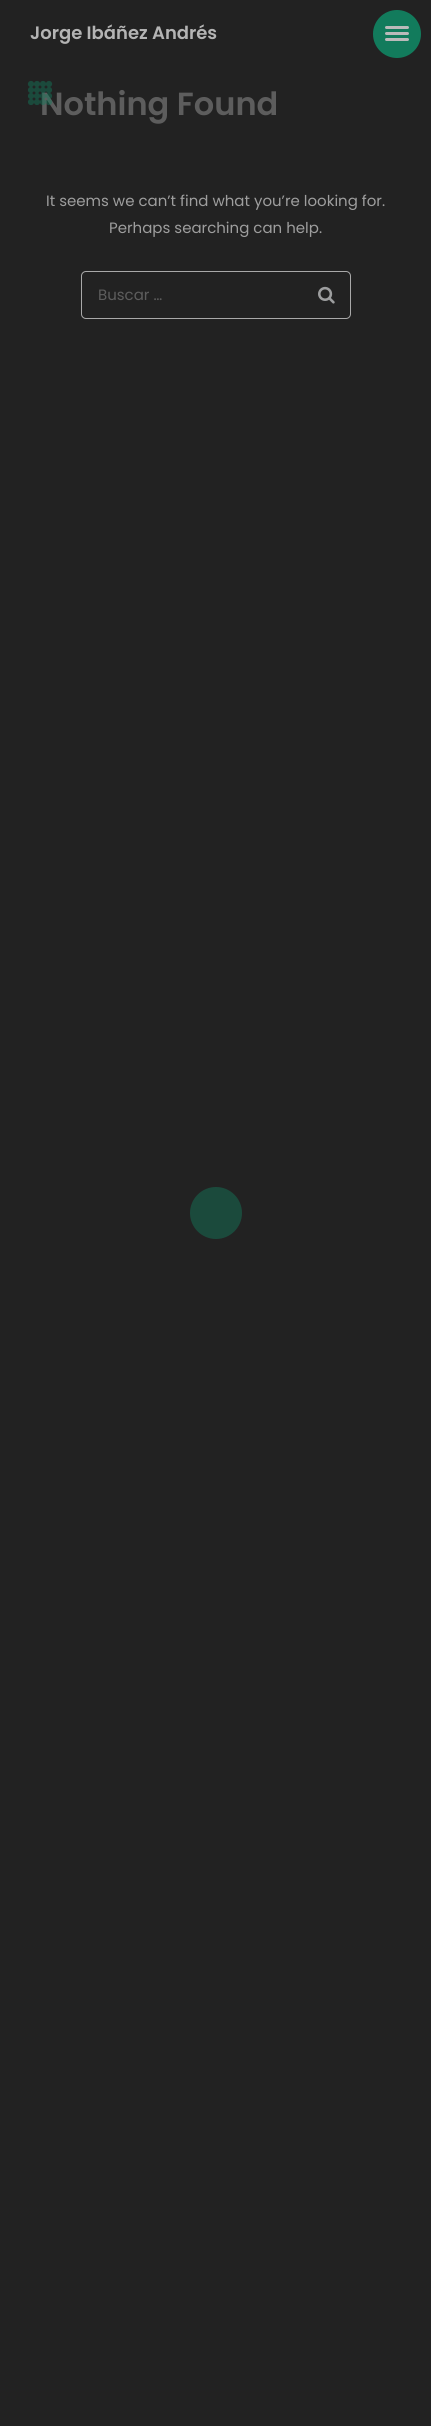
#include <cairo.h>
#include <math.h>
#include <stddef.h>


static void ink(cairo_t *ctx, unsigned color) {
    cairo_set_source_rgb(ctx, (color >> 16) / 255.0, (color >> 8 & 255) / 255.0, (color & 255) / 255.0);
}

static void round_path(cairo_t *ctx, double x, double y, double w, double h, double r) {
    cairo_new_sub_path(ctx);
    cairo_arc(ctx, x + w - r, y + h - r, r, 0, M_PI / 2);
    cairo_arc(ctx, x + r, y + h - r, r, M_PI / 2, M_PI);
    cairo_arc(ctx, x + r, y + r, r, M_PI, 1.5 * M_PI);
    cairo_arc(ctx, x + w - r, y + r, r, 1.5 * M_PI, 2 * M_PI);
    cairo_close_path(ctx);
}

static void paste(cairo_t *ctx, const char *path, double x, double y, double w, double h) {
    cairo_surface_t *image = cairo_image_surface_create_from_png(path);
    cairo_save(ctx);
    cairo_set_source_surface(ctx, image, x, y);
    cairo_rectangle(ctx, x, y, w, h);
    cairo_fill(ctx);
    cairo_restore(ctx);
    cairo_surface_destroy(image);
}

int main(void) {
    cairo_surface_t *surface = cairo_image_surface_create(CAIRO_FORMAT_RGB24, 431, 2426);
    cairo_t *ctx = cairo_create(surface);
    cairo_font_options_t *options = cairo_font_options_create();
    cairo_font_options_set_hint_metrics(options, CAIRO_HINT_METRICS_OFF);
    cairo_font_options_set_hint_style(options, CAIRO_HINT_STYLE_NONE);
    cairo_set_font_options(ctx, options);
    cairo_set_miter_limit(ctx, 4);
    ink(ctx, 0x222222);
    cairo_paint(ctx);
    cairo_select_font_face(ctx, "Poppins SemiBold", CAIRO_FONT_SLANT_NORMAL, CAIRO_FONT_WEIGHT_NORMAL);
    cairo_set_font_size(ctx, 18);
    ink(ctx, 0xB4B4B4);
    cairo_move_to(ctx, 30, 39);
    cairo_show_text(ctx, "Jorge Ibáñez Andrés");
    ink(ctx, 0x127B5C);
    cairo_new_path(ctx);
    cairo_arc(ctx, 397, 34, 24, 0, 2 * M_PI);
    cairo_fill(ctx);
    ink(ctx, 0xBABABA);
    round_path(ctx, 385, 26, 24, 3, 1.5);
    cairo_fill(ctx);
    round_path(ctx, 385, 32, 24, 3, 1.5);
    cairo_fill(ctx);
    round_path(ctx, 385, 38, 24, 3, 1.5);
    cairo_fill(ctx);
    cairo_new_path(ctx);
    cairo_move_to(ctx, 31, 84);
    cairo_line_to(ctx, 49.2, 84);
    ink(ctx, 0x1B4A3C);
    cairo_set_line_width(ctx, 6.2);
    cairo_set_line_cap(ctx, CAIRO_LINE_CAP_ROUND);
    cairo_set_dash(ctx, (double[]){0, 6}, 2, 0);
    cairo_stroke(ctx);
    cairo_set_font_size(ctx, 32);
    ink(ctx, 0x5D5D5D);
    cairo_move_to(ctx, 40, 115);
    cairo_show_text(ctx, "Nothing Found");
    cairo_new_path(ctx);
    cairo_move_to(ctx, 31, 90);
    cairo_line_to(ctx, 49.2, 90);
    cairo_set_source_rgba(ctx, 0.071, 0.482, 0.361, 0.45);
    cairo_stroke(ctx);
    cairo_new_path(ctx);
    cairo_move_to(ctx, 31, 96);
    cairo_line_to(ctx, 49.2, 96);
    cairo_stroke(ctx);
    cairo_new_path(ctx);
    cairo_move_to(ctx, 31, 102);
    cairo_line_to(ctx, 49.2, 102);
    cairo_stroke(ctx);
    cairo_select_font_face(ctx, "Poppins", CAIRO_FONT_SLANT_NORMAL, CAIRO_FONT_WEIGHT_NORMAL);
    cairo_set_font_size(ctx, 15);
    ink(ctx, 0x9E9E9E);
    cairo_move_to(ctx, 46, 206);
    cairo_show_text(ctx, "It seems we can’t find what you’re looking for.");
    cairo_move_to(ctx, 109, 233);
    cairo_show_text(ctx, "Perhaps searching can help.");
    round_path(ctx, 81.5, 271.5, 269, 47, 4.5);
    ink(ctx, 0xA9A9A9);
    cairo_set_line_width(ctx, 1);
    cairo_set_line_cap(ctx, CAIRO_LINE_CAP_BUTT);
    cairo_set_dash(ctx, NULL, 0, 0);
    cairo_stroke(ctx);
    ink(ctx, 0x5D5D5D);
    cairo_move_to(ctx, 98, 300);
    cairo_show_text(ctx, "Buscar …");
    paste(ctx, "media/1.png", 318, 286, 17, 18);
    ink(ctx, 0x1B4A3C);
    cairo_arc(ctx, 216, 1213, 26, 0, 2 * M_PI);
    cairo_fill(ctx);
    cairo_surface_write_to_png(surface, "image.png");
    cairo_font_options_destroy(options);
    cairo_destroy(ctx);
    cairo_surface_destroy(surface);
    return 0;
}
